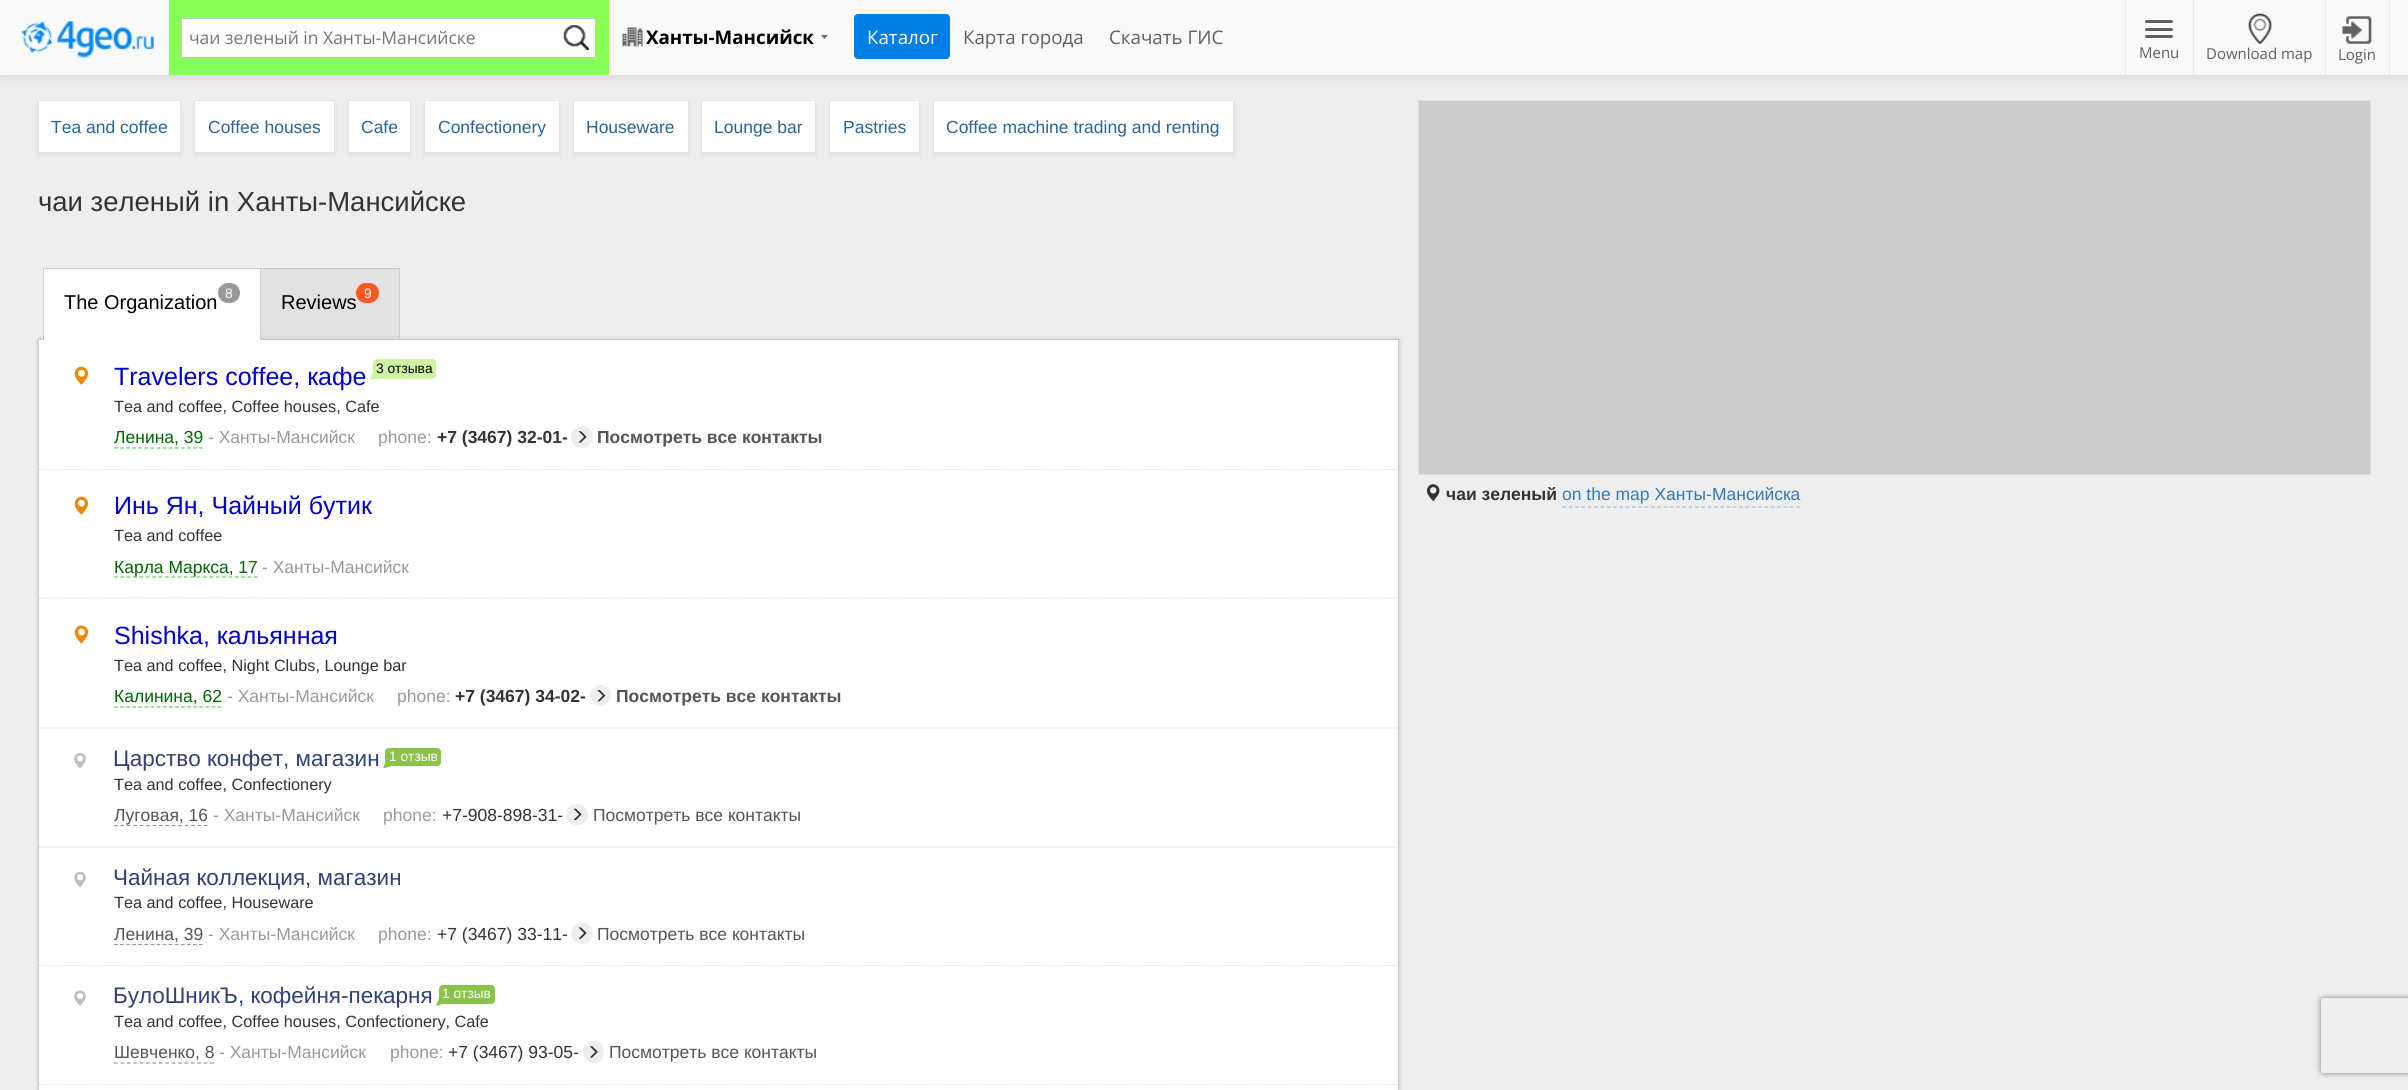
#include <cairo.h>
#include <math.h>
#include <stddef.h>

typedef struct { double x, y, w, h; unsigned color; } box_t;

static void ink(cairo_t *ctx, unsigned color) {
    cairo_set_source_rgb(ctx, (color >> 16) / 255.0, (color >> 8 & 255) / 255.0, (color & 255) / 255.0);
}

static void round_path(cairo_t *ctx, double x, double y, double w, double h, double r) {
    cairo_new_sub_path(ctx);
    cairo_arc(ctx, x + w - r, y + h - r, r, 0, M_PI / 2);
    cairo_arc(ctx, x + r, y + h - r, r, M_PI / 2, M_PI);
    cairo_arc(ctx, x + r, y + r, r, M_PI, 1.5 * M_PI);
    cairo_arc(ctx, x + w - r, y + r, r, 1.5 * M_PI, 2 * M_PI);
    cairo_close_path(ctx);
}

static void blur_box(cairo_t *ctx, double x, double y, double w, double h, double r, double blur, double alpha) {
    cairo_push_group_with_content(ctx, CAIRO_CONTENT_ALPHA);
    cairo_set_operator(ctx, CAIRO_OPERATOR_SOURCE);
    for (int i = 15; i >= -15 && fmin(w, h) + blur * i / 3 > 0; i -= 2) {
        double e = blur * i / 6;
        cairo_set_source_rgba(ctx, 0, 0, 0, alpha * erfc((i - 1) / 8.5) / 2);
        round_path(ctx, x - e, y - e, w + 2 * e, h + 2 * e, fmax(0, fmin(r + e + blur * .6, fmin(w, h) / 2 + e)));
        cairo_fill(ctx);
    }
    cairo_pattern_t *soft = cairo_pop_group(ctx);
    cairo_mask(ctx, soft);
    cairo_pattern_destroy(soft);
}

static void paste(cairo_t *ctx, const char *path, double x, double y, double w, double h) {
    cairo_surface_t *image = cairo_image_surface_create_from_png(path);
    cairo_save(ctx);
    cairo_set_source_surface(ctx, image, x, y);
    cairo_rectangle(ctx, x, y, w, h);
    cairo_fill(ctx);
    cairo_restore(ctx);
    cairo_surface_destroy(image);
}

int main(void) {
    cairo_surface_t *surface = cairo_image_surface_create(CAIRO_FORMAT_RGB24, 2408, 1090);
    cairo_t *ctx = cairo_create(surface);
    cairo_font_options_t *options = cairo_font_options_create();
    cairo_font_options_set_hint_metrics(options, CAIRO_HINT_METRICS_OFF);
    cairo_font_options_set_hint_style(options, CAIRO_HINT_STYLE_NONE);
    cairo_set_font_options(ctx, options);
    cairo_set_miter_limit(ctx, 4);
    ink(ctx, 0xEEEEEE);
    cairo_paint(ctx);
    ink(ctx, 0xCCCCCC);
    blur_box(ctx, 0, 0, 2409, 75, 0, 7, 1);
    ink(ctx, 0xF9F9F9);
    cairo_rectangle(ctx, 0, 0, 2408, 75);
    cairo_fill(ctx);
    paste(ctx, "media/1.png", 21, 21, 133, 37);
    ink(ctx, 0x89FE56);
    cairo_rectangle(ctx, 169, 0, 440, 75);
    cairo_fill(ctx);
    ink(ctx, 0xFEFEFE);
    cairo_rectangle(ctx, 181.5, 18.5, 414, 39);
    cairo_fill_preserve(ctx);
    ink(ctx, 0xC8C8C8);
    cairo_set_line_width(ctx, 1);
    cairo_stroke(ctx);
    cairo_select_font_face(ctx, "Open Sans", CAIRO_FONT_SLANT_NORMAL, CAIRO_FONT_WEIGHT_NORMAL);
    cairo_set_font_size(ctx, 17.5);
    ink(ctx, 0x757575);
    cairo_move_to(ctx, 189, 44);
    cairo_show_text(ctx, "чаи зеленый in Ханты-Мансийске");
    paste(ctx, "media/2.png", 563, 25, 26, 25);
    paste(ctx, "media/3.png", 621, 27, 22, 20);
    paste(ctx, "media/4.png", 821, 34, 7, 5);
    cairo_select_font_face(ctx, "Open Sans", CAIRO_FONT_SLANT_NORMAL, CAIRO_FONT_WEIGHT_BOLD);
    cairo_set_font_size(ctx, 18.75);
    ink(ctx, 0x000000);
    cairo_move_to(ctx, 646, 44);
    cairo_show_text(ctx, "Ханты-Мансийск");
    ink(ctx, 0x017FE3);
    round_path(ctx, 854, 14, 96, 45, 4);
    cairo_fill(ctx);
    cairo_select_font_face(ctx, "Open Sans", CAIRO_FONT_SLANT_NORMAL, CAIRO_FONT_WEIGHT_NORMAL);
    ink(ctx, 0xFFFFFF);
    cairo_move_to(ctx, 867, 44);
    cairo_show_text(ctx, "Каталог");
    ink(ctx, 0x606060);
    cairo_move_to(ctx, 963, 44);
    cairo_show_text(ctx, "Карта города");
    cairo_move_to(ctx, 1109, 44);
    cairo_show_text(ctx, "Скачать ГИС");
    ink(ctx, 0xEAEAEA);
    cairo_rectangle(ctx, 2125, 0, 1, 75);
    cairo_fill(ctx);
    ink(ctx, 0x606060);
    round_path(ctx, 2145, 20, 28, 3, 1.5);
    cairo_fill(ctx);
    round_path(ctx, 2145, 28, 28, 3, 1.5);
    cairo_fill(ctx);
    round_path(ctx, 2145, 35, 28, 3, 1.5);
    cairo_fill(ctx);
    cairo_set_font_size(ctx, 15);
    cairo_move_to(ctx, 2139, 58);
    cairo_show_text(ctx, "Menu");
    ink(ctx, 0xEAEAEA);
    cairo_rectangle(ctx, 2193, 0, 1, 75);
    cairo_fill(ctx);
    paste(ctx, "media/5.png", 2248, 13, 24, 31);
    ink(ctx, 0x606060);
    cairo_move_to(ctx, 2206, 59);
    cairo_show_text(ctx, "Download map");
    ink(ctx, 0xEAEAEA);
    cairo_rectangle(ctx, 2389, 0, 1, 75);
    cairo_fill(ctx);
    cairo_rectangle(ctx, 2325, 0, 1, 75);
    cairo_fill(ctx);
    paste(ctx, "media/6.png", 2342, 16, 31, 28);
    ink(ctx, 0x606060);
    cairo_move_to(ctx, 2338, 60);
    cairo_show_text(ctx, "Login");
    ink(ctx, 0x000000);
    blur_box(ctx, 38, 104, 143, 52, 0, 2, 0.05);
    ink(ctx, 0xFFFFFF);
    cairo_rectangle(ctx, 38.5, 100.5, 142, 52);
    cairo_fill_preserve(ctx);
    ink(ctx, 0xE3E3E3);
    cairo_stroke(ctx);
    cairo_select_font_face(ctx, "Liberation Sans", CAIRO_FONT_SLANT_NORMAL, CAIRO_FONT_WEIGHT_NORMAL);
    cairo_set_font_size(ctx, 17.5);
    ink(ctx, 0x2A6495);
    cairo_move_to(ctx, 51, 133);
    cairo_show_text(ctx, "Tea and coffee");
    ink(ctx, 0x000000);
    blur_box(ctx, 194, 104, 141, 52, 0, 2, 0.05);
    ink(ctx, 0xFFFFFF);
    cairo_rectangle(ctx, 194.5, 100.5, 140, 52);
    cairo_fill_preserve(ctx);
    ink(ctx, 0xE3E3E3);
    cairo_stroke(ctx);
    ink(ctx, 0x2A6495);
    cairo_move_to(ctx, 208, 133);
    cairo_show_text(ctx, "Coffee houses");
    ink(ctx, 0x000000);
    blur_box(ctx, 348, 104, 63, 52, 0, 2, 0.05);
    ink(ctx, 0xFFFFFF);
    cairo_rectangle(ctx, 348.5, 100.5, 62, 52);
    cairo_fill_preserve(ctx);
    ink(ctx, 0xE3E3E3);
    cairo_stroke(ctx);
    ink(ctx, 0x2A6495);
    cairo_move_to(ctx, 361, 133);
    cairo_show_text(ctx, "Cafe");
    ink(ctx, 0x000000);
    blur_box(ctx, 424, 104, 136, 52, 0, 2, 0.05);
    ink(ctx, 0xFFFFFF);
    cairo_rectangle(ctx, 424.5, 100.5, 135, 52);
    cairo_fill_preserve(ctx);
    ink(ctx, 0xE3E3E3);
    cairo_stroke(ctx);
    ink(ctx, 0x2A6495);
    cairo_move_to(ctx, 438, 133);
    cairo_show_text(ctx, "Confectionery");
    ink(ctx, 0x000000);
    blur_box(ctx, 573, 104, 116, 52, 0, 2, 0.05);
    ink(ctx, 0xFFFFFF);
    cairo_rectangle(ctx, 573.5, 100.5, 115, 52);
    cairo_fill_preserve(ctx);
    ink(ctx, 0xE3E3E3);
    cairo_stroke(ctx);
    ink(ctx, 0x2A6495);
    cairo_move_to(ctx, 586, 133);
    cairo_show_text(ctx, "Houseware");
    ink(ctx, 0x000000);
    blur_box(ctx, 701, 104, 115, 52, 0, 2, 0.05);
    ink(ctx, 0xFFFFFF);
    cairo_rectangle(ctx, 701.5, 100.5, 114, 52);
    cairo_fill_preserve(ctx);
    ink(ctx, 0xE3E3E3);
    cairo_stroke(ctx);
    ink(ctx, 0x2A6495);
    cairo_move_to(ctx, 714, 133);
    cairo_show_text(ctx, "Lounge bar");
    ink(ctx, 0x000000);
    blur_box(ctx, 829, 104, 91, 52, 0, 2, 0.05);
    ink(ctx, 0xFFFFFF);
    cairo_rectangle(ctx, 829.5, 100.5, 90, 52);
    cairo_fill_preserve(ctx);
    ink(ctx, 0xE3E3E3);
    cairo_stroke(ctx);
    ink(ctx, 0x2A6495);
    cairo_move_to(ctx, 843, 133);
    cairo_show_text(ctx, "Pastries");
    ink(ctx, 0x000000);
    blur_box(ctx, 933, 104, 301, 52, 0, 2, 0.05);
    ink(ctx, 0xFFFFFF);
    cairo_rectangle(ctx, 933.5, 100.5, 300, 52);
    cairo_fill_preserve(ctx);
    ink(ctx, 0xE3E3E3);
    cairo_stroke(ctx);
    ink(ctx, 0x2A6495);
    cairo_move_to(ctx, 946, 133);
    cairo_show_text(ctx, "Сoffee machine trading and renting");
    cairo_set_font_size(ctx, 27.5);
    ink(ctx, 0x333333);
    cairo_move_to(ctx, 38, 211);
    cairo_show_text(ctx, "чаи зеленый in Ханты-Мансийске");
    {
        static const box_t items[] = {
            {44, 269, 216, 66, 0xFFFFFF},
            {43, 268, 357, 1, 0xCCCCCC},
            {260, 268, 1, 71, 0xCCCCCC},
            {260, 338, 1, 1, 0xFFFFFF},
            {43, 268, 1, 71, 0xCCCCCC},
        };
        for (size_t i = 0; i < sizeof items / sizeof *items; i++) {
            ink(ctx, items[i].color);
            cairo_rectangle(ctx, items[i].x, items[i].y, items[i].w, items[i].h);
            cairo_fill(ctx);
        }
    }
    cairo_set_font_size(ctx, 20);
    ink(ctx, 0x000000);
    cairo_move_to(ctx, 64, 309);
    cairo_show_text(ctx, "The Organization");
    ink(ctx, 0x999999);
    round_path(ctx, 218, 283, 22, 20, 10);
    cairo_fill(ctx);
    cairo_set_font_size(ctx, 13.75);
    ink(ctx, 0xFFFFFF);
    cairo_move_to(ctx, 225, 298);
    cairo_show_text(ctx, "8");
    ink(ctx, 0xE2E2E2);
    cairo_rectangle(ctx, 261, 269, 138, 69);
    cairo_fill(ctx);
    ink(ctx, 0xCCCCCC);
    cairo_rectangle(ctx, 399, 268, 1, 70);
    cairo_fill(ctx);
    ink(ctx, 0x000000);
    blur_box(ctx, 38, 339, 1361, 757, 0, 2, 0.2);
    cairo_rectangle(ctx, 38.5, 339.5, 1360, 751);
    ink(ctx, 0xCCCCCC);
    cairo_stroke(ctx);
    ink(ctx, 0xFFFFFF);
    cairo_rectangle(ctx, 44, 335, 216, 5);
    cairo_fill(ctx);
    cairo_set_font_size(ctx, 20);
    ink(ctx, 0x000000);
    cairo_move_to(ctx, 281, 309);
    cairo_show_text(ctx, "Reviews");
    ink(ctx, 0xFF5722);
    round_path(ctx, 356, 283, 23, 20, 10);
    cairo_fill(ctx);
    cairo_set_font_size(ctx, 13.75);
    ink(ctx, 0xFFFFFF);
    cairo_move_to(ctx, 364, 298);
    cairo_show_text(ctx, "9");
    cairo_rectangle(ctx, 39, 340, 1359, 626);
    cairo_fill(ctx);
    cairo_new_path(ctx);
    cairo_move_to(ctx, 39, 469.5);
    cairo_line_to(ctx, 1397.5, 469.5);
    ink(ctx, 0xDDDDDD);
    cairo_set_line_width(ctx, 1.2);
    cairo_set_dash(ctx, (double[]){1.25, 1.25}, 2, 0);
    cairo_stroke(ctx);
    paste(ctx, "media/7.png", 74, 366, 15, 19);
    cairo_set_font_size(ctx, 25);
    ink(ctx, 0x0000CC);
    cairo_move_to(ctx, 114, 385);
    cairo_show_text(ctx, "Travelers coffee, кафе");
    ink(ctx, 0xCDF2A2);
    round_path(ctx, 373, 359, 63, 20, 4);
    cairo_fill(ctx);
    cairo_new_path(ctx);
    cairo_move_to(ctx, 375.5, 365.5);
    cairo_line_to(ctx, 388, 362.5);
    cairo_line_to(ctx, 382, 377);
    cairo_line_to(ctx, 370, 380);
    cairo_close_path(ctx);
    cairo_fill(ctx);
    cairo_set_font_size(ctx, 13.75);
    ink(ctx, 0x000000);
    cairo_move_to(ctx, 376, 373);
    cairo_show_text(ctx, "3 отзыва");
    cairo_set_font_size(ctx, 16.25);
    ink(ctx, 0x333333);
    cairo_move_to(ctx, 114, 412);
    cairo_show_text(ctx, "Tea and coffee, Coffee houses, Cafe");
    cairo_set_font_size(ctx, 17.5);
    ink(ctx, 0x006600);
    cairo_move_to(ctx, 114, 443);
    cairo_show_text(ctx, "Ленина, 39");
    cairo_new_path(ctx);
    cairo_move_to(ctx, 114, 448);
    cairo_line_to(ctx, 202.5, 448);
    ink(ctx, 0x5CCF5C);
    cairo_set_dash(ctx, (double[]){3.75, 2.33}, 2, 0);
    cairo_stroke(ctx);
    ink(ctx, 0x999999);
    cairo_move_to(ctx, 208, 443);
    cairo_show_text(ctx, "- Ханты-Мансийск");
    cairo_move_to(ctx, 378, 443);
    cairo_show_text(ctx, "phone:");
    cairo_select_font_face(ctx, "Liberation Sans", CAIRO_FONT_SLANT_NORMAL, CAIRO_FONT_WEIGHT_BOLD);
    ink(ctx, 0x333333);
    cairo_move_to(ctx, 437, 443);
    cairo_show_text(ctx, "+7 (3467) 32-01-");
    ink(ctx, 0xEEEEEE);
    cairo_new_path(ctx);
    cairo_arc(ctx, 582, 437, 11, 0, 2 * M_PI);
    cairo_fill(ctx);
    paste(ctx, "media/8.png", 578, 431, 9, 12);
    ink(ctx, 0x555555);
    cairo_move_to(ctx, 597, 443);
    cairo_show_text(ctx, "Посмотреть все контакты");
    ink(ctx, 0xFFFFFF);
    cairo_rectangle(ctx, 39, 470, 1356, 1);
    cairo_fill(ctx);
    cairo_new_path(ctx);
    cairo_move_to(ctx, 39, 598);
    cairo_line_to(ctx, 1397.5, 598);
    ink(ctx, 0xDDDDDD);
    cairo_set_dash(ctx, (double[]){1.25, 1.25}, 2, 0);
    cairo_stroke(ctx);
    paste(ctx, "media/7.png", 74, 496, 15, 19);
    cairo_select_font_face(ctx, "Liberation Sans", CAIRO_FONT_SLANT_NORMAL, CAIRO_FONT_WEIGHT_NORMAL);
    cairo_set_font_size(ctx, 25);
    ink(ctx, 0x0000CC);
    cairo_move_to(ctx, 114, 514);
    cairo_show_text(ctx, "Инь Ян, Чайный бутик");
    cairo_set_font_size(ctx, 16.25);
    ink(ctx, 0x333333);
    cairo_move_to(ctx, 114, 541);
    cairo_show_text(ctx, "Tea and coffee");
    cairo_new_path(ctx);
    cairo_move_to(ctx, 114, 577);
    cairo_line_to(ctx, 257.5, 577);
    ink(ctx, 0x5CCF5C);
    cairo_set_dash(ctx, (double[]){3.75, 2.61}, 2, 0);
    cairo_stroke(ctx);
    cairo_set_font_size(ctx, 17.5);
    ink(ctx, 0x006600);
    cairo_move_to(ctx, 114, 573);
    cairo_show_text(ctx, "Карла Маркса, 17");
    ink(ctx, 0x999999);
    cairo_move_to(ctx, 262, 573);
    cairo_show_text(ctx, "- Ханты-Мансийск");
    cairo_new_path(ctx);
    cairo_move_to(ctx, 39, 728);
    cairo_line_to(ctx, 1397.5, 728);
    ink(ctx, 0xDDDDDD);
    cairo_set_dash(ctx, (double[]){1.25, 1.25}, 2, 0);
    cairo_stroke(ctx);
    paste(ctx, "media/9.png", 74, 625, 15, 19);
    cairo_set_font_size(ctx, 25);
    ink(ctx, 0x0000CC);
    cairo_move_to(ctx, 114, 644);
    cairo_show_text(ctx, "Shishka, кальянная");
    cairo_set_font_size(ctx, 16.25);
    ink(ctx, 0x333333);
    cairo_move_to(ctx, 114, 671);
    cairo_show_text(ctx, "Tea and coffee, Night Clubs, Lounge bar");
    cairo_set_font_size(ctx, 17.5);
    ink(ctx, 0x006600);
    cairo_move_to(ctx, 114, 702);
    cairo_show_text(ctx, "Калинина, 62");
    cairo_new_path(ctx);
    cairo_move_to(ctx, 114, 707);
    cairo_line_to(ctx, 221, 707);
    ink(ctx, 0x5CCF5C);
    cairo_set_dash(ctx, (double[]){3.75, 2.35}, 2, 0);
    cairo_stroke(ctx);
    ink(ctx, 0x999999);
    cairo_move_to(ctx, 227, 702);
    cairo_show_text(ctx, "- Ханты-Мансийск");
    cairo_move_to(ctx, 397, 702);
    cairo_show_text(ctx, "phone:");
    cairo_select_font_face(ctx, "Liberation Sans", CAIRO_FONT_SLANT_NORMAL, CAIRO_FONT_WEIGHT_BOLD);
    ink(ctx, 0x333333);
    cairo_move_to(ctx, 455, 702);
    cairo_show_text(ctx, "+7 (3467) 34-02-");
    ink(ctx, 0xEEEEEE);
    cairo_new_path(ctx);
    cairo_arc(ctx, 600.5, 695.5, 10.5, 0, 2 * M_PI);
    cairo_fill(ctx);
    paste(ctx, "media/10.png", 597, 689, 9, 13);
    ink(ctx, 0x555555);
    cairo_move_to(ctx, 616, 702);
    cairo_show_text(ctx, "Посмотреть все контакты");
    cairo_new_path(ctx);
    cairo_move_to(ctx, 39, 847);
    cairo_line_to(ctx, 1397.5, 847);
    ink(ctx, 0xDDDDDD);
    cairo_set_dash(ctx, (double[]){1.25, 1.25}, 2, 0);
    cairo_stroke(ctx);
    paste(ctx, "media/11.png", 74, 753, 12, 16);
    cairo_select_font_face(ctx, "Liberation Sans", CAIRO_FONT_SLANT_NORMAL, CAIRO_FONT_WEIGHT_NORMAL);
    cairo_set_font_size(ctx, 22.5);
    ink(ctx, 0x2E4178);
    cairo_move_to(ctx, 113, 766);
    cairo_show_text(ctx, "Царство конфет, магазин");
    ink(ctx, 0x8BC34A);
    round_path(ctx, 385, 748, 56, 18, 4);
    cairo_fill(ctx);
    cairo_new_path(ctx);
    cairo_move_to(ctx, 388.5, 754);
    cairo_line_to(ctx, 400.5, 751);
    cairo_line_to(ctx, 395, 765);
    cairo_line_to(ctx, 383, 768.5);
    cairo_close_path(ctx);
    cairo_fill(ctx);
    cairo_set_font_size(ctx, 13.75);
    ink(ctx, 0xFFFFFF);
    cairo_move_to(ctx, 389, 761);
    cairo_show_text(ctx, "1 отзыв");
    cairo_set_font_size(ctx, 16.25);
    ink(ctx, 0x333333);
    cairo_move_to(ctx, 114, 790);
    cairo_show_text(ctx, "Tea and coffee, Confectionery");
    cairo_new_path(ctx);
    cairo_move_to(ctx, 114, 825.5);
    cairo_line_to(ctx, 207.5, 825.5);
    ink(ctx, 0x999999);
    cairo_set_dash(ctx, (double[]){3.75, 2.68}, 2, 0);
    cairo_stroke(ctx);
    cairo_set_font_size(ctx, 17.5);
    ink(ctx, 0x555555);
    cairo_move_to(ctx, 114, 821);
    cairo_show_text(ctx, "Луговая, 16");
    ink(ctx, 0x999999);
    cairo_move_to(ctx, 213, 821);
    cairo_show_text(ctx, "- Ханты-Мансийск");
    cairo_move_to(ctx, 383, 821);
    cairo_show_text(ctx, "phone:");
    ink(ctx, 0x333333);
    cairo_move_to(ctx, 442, 821);
    cairo_show_text(ctx, "+7-908-898-31-");
    ink(ctx, 0xEEEEEE);
    round_path(ctx, 566, 804, 22, 21, 10.5);
    cairo_fill(ctx);
    paste(ctx, "media/12.png", 573, 808, 9, 13);
    ink(ctx, 0x555555);
    cairo_move_to(ctx, 593, 821);
    cairo_show_text(ctx, "Посмотреть все контакты");
    cairo_new_path(ctx);
    cairo_move_to(ctx, 39, 965.5);
    cairo_line_to(ctx, 1397.5, 965.5);
    ink(ctx, 0xDDDDDD);
    cairo_set_dash(ctx, (double[]){1.25, 1.25}, 2, 0);
    cairo_stroke(ctx);
    paste(ctx, "media/13.png", 74, 871, 12, 17);
    cairo_set_font_size(ctx, 22.5);
    ink(ctx, 0x2E4178);
    cairo_move_to(ctx, 113, 885);
    cairo_show_text(ctx, "Чайная коллекция, магазин");
    cairo_set_font_size(ctx, 16.25);
    ink(ctx, 0x333333);
    cairo_move_to(ctx, 114, 908);
    cairo_show_text(ctx, "Tea and coffee, Houseware");
    cairo_set_font_size(ctx, 17.5);
    ink(ctx, 0x555555);
    cairo_move_to(ctx, 114, 940);
    cairo_show_text(ctx, "Ленина, 39");
    cairo_new_path(ctx);
    cairo_move_to(ctx, 114, 944.5);
    cairo_line_to(ctx, 202.5, 944.5);
    ink(ctx, 0x999999);
    cairo_set_dash(ctx, (double[]){3.75, 2.33}, 2, 0);
    cairo_stroke(ctx);
    cairo_move_to(ctx, 208, 940);
    cairo_show_text(ctx, "- Ханты-Мансийск");
    cairo_move_to(ctx, 378, 940);
    cairo_show_text(ctx, "phone:");
    ink(ctx, 0x333333);
    cairo_move_to(ctx, 437, 940);
    cairo_show_text(ctx, "+7 (3467) 33-11-");
    ink(ctx, 0xEEEEEE);
    round_path(ctx, 571, 923, 22, 21, 10.5);
    cairo_fill(ctx);
    paste(ctx, "media/14.png", 578, 927, 9, 12);
    ink(ctx, 0x555555);
    cairo_move_to(ctx, 597, 940);
    cairo_show_text(ctx, "Посмотреть все контакты");
    ink(ctx, 0xFFFFFF);
    cairo_rectangle(ctx, 39, 966, 1359, 119);
    cairo_fill(ctx);
    cairo_new_path(ctx);
    cairo_move_to(ctx, 39, 1084.5);
    cairo_line_to(ctx, 1397.5, 1084.5);
    ink(ctx, 0xDDDDDD);
    cairo_set_dash(ctx, (double[]){1.25, 1.25}, 2, 0);
    cairo_stroke(ctx);
    paste(ctx, "media/15.png", 74, 990, 12, 16);
    cairo_set_font_size(ctx, 22.5);
    ink(ctx, 0x2E4178);
    cairo_move_to(ctx, 113, 1003);
    cairo_show_text(ctx, "БулоШникЪ, кофейня-пекарня");
    ink(ctx, 0x8BC34A);
    round_path(ctx, 439, 985, 56, 19, 4);
    cairo_fill(ctx);
    cairo_new_path(ctx);
    cairo_move_to(ctx, 441.5, 991.5);
    cairo_line_to(ctx, 454, 988.5);
    cairo_line_to(ctx, 448, 1002.5);
    cairo_line_to(ctx, 436, 1006);
    cairo_close_path(ctx);
    cairo_fill(ctx);
    cairo_set_font_size(ctx, 13.75);
    ink(ctx, 0xFFFFFF);
    cairo_move_to(ctx, 442, 998);
    cairo_show_text(ctx, "1 отзыв");
    cairo_set_font_size(ctx, 16.25);
    ink(ctx, 0x333333);
    cairo_move_to(ctx, 114, 1027);
    cairo_show_text(ctx, "Tea and coffee, Coffee houses, Confectionery, Cafe");
    cairo_set_font_size(ctx, 17.5);
    ink(ctx, 0x555555);
    cairo_move_to(ctx, 114, 1058);
    cairo_show_text(ctx, "Шевченко, 8");
    cairo_new_path(ctx);
    cairo_move_to(ctx, 114, 1063);
    cairo_line_to(ctx, 214, 1063);
    ink(ctx, 0x999999);
    cairo_set_dash(ctx, (double[]){3.75, 2.66}, 2, 0);
    cairo_stroke(ctx);
    cairo_move_to(ctx, 219, 1058);
    cairo_show_text(ctx, "- Ханты-Мансийск");
    cairo_move_to(ctx, 390, 1058);
    cairo_show_text(ctx, "phone:");
    ink(ctx, 0x333333);
    cairo_move_to(ctx, 448, 1058);
    cairo_show_text(ctx, "+7 (3467) 93-05-");
    ink(ctx, 0xEEEEEE);
    round_path(ctx, 583, 1041, 21, 22, 10.5);
    cairo_fill(ctx);
    paste(ctx, "media/16.png", 590, 1046, 8, 12);
    ink(ctx, 0x555555);
    cairo_move_to(ctx, 609, 1058);
    cairo_show_text(ctx, "Посмотреть все контакты");
    ink(ctx, 0xFFFFFF);
    cairo_rectangle(ctx, 39, 1085, 1359, 5);
    cairo_fill(ctx);
    ink(ctx, 0xCCCCCC);
    cairo_rectangle(ctx, 1418.5, 100.5, 952, 374);
    cairo_fill_preserve(ctx);
    ink(ctx, 0xDDDDDD);
    cairo_set_line_width(ctx, 1);
    cairo_set_dash(ctx, NULL, 0, 0);
    cairo_stroke(ctx);
    paste(ctx, "media/17.png", 1426, 484, 14, 18);
    cairo_select_font_face(ctx, "Liberation Sans", CAIRO_FONT_SLANT_NORMAL, CAIRO_FONT_WEIGHT_BOLD);
    ink(ctx, 0x333333);
    cairo_move_to(ctx, 1446, 500);
    cairo_show_text(ctx, "чаи зеленый");
    cairo_select_font_face(ctx, "Liberation Sans", CAIRO_FONT_SLANT_NORMAL, CAIRO_FONT_WEIGHT_NORMAL);
    ink(ctx, 0x337AB7);
    cairo_move_to(ctx, 1562, 500);
    cairo_show_text(ctx, "on the map Ханты-Мансийска");
    cairo_new_path(ctx);
    cairo_move_to(ctx, 1562.5, 507);
    cairo_line_to(ctx, 1800, 507);
    ink(ctx, 0x95BEE2);
    cairo_set_line_width(ctx, 1.2);
    cairo_set_dash(ctx, (double[]){3.75, 2.56}, 2, 0);
    cairo_stroke(ctx);
    cairo_save(ctx);
    cairo_set_fill_rule(ctx, CAIRO_FILL_RULE_EVEN_ODD);
    cairo_new_path(ctx);
    cairo_move_to(ctx, 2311, 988);
    cairo_line_to(ctx, 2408, 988);
    cairo_line_to(ctx, 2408, 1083);
    cairo_line_to(ctx, 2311, 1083);
    cairo_close_path(ctx);
    cairo_move_to(ctx, 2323.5, 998);
    cairo_line_to(ctx, 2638.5, 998);
    cairo_curve_to(ctx, 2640, 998, 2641, 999, 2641, 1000.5);
    cairo_line_to(ctx, 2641, 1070.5);
    cairo_curve_to(ctx, 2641, 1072, 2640, 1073, 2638.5, 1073);
    cairo_line_to(ctx, 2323.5, 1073);
    cairo_curve_to(ctx, 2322, 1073, 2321, 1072, 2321, 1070.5);
    cairo_line_to(ctx, 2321, 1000.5);
    cairo_curve_to(ctx, 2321, 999, 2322, 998, 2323.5, 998);
    cairo_close_path(ctx);
    cairo_clip(ctx);
    ink(ctx, 0x808080);
    blur_box(ctx, 2321, 998, 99, 75, 2.5, 3, 1);
    cairo_restore(ctx);
    cairo_surface_write_to_png(surface, "image.png");
    cairo_font_options_destroy(options);
    cairo_destroy(ctx);
    cairo_surface_destroy(surface);
    return 0;
}
